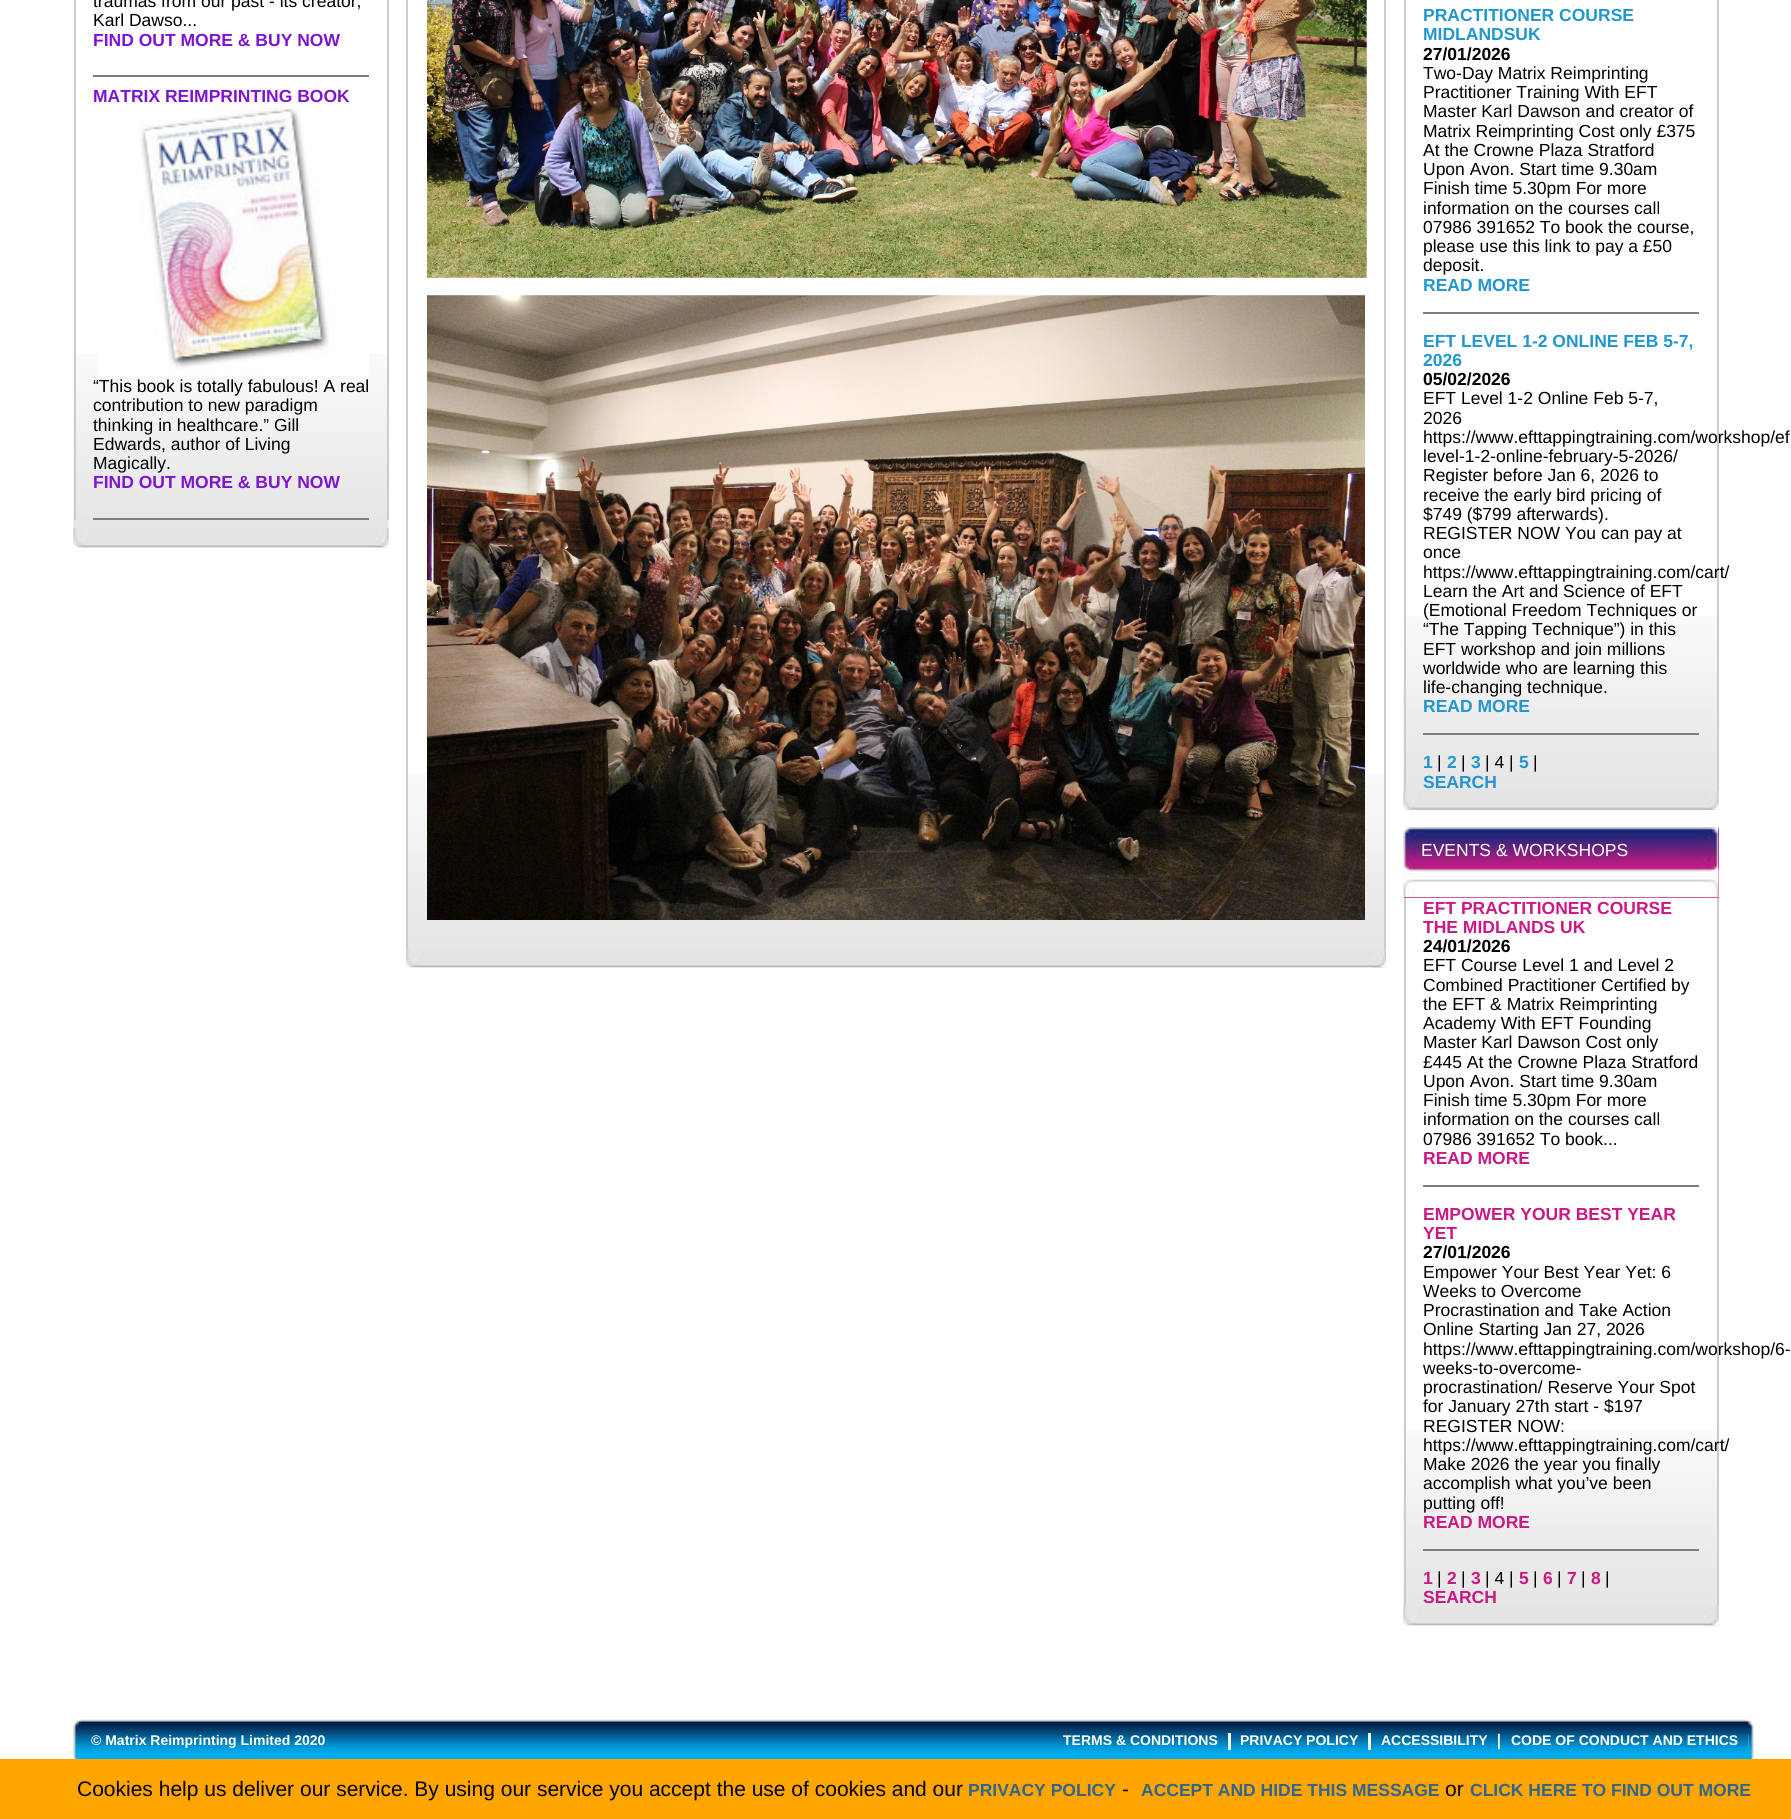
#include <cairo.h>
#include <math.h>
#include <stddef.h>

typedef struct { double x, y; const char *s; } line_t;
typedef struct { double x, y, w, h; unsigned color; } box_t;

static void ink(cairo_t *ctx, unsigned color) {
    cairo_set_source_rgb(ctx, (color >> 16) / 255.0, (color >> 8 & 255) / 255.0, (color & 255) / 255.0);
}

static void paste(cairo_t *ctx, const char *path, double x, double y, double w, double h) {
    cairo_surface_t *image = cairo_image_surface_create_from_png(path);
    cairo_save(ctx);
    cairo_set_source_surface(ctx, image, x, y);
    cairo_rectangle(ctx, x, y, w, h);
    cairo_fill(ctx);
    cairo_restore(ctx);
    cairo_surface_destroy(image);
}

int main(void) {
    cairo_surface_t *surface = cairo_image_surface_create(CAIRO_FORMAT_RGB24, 1791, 1819);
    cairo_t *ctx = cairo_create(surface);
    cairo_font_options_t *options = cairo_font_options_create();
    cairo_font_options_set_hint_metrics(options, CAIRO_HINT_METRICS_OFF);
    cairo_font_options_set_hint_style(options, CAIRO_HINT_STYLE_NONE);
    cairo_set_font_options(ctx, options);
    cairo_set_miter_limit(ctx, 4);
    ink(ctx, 0xFFFFFF);
    cairo_paint(ctx);
    paste(ctx, "media/1.png", 73, 353, 316, 195);
    ink(ctx, 0xCCCCCC);
    cairo_rectangle(ctx, 387, 0, 2, 520);
    cairo_fill(ctx);
    cairo_rectangle(ctx, 74, 0, 2, 520);
    cairo_fill(ctx);
    cairo_select_font_face(ctx, "Liberation Sans", CAIRO_FONT_SLANT_NORMAL, CAIRO_FONT_WEIGHT_NORMAL);
    cairo_set_font_size(ctx, 17.5);
    ink(ctx, 0x000000);
    cairo_move_to(ctx, 93, 7);
    cairo_show_text(ctx, "traumas from our past - its creator,");
    cairo_move_to(ctx, 93, 26);
    cairo_show_text(ctx, "Karl Dawso...");
    cairo_select_font_face(ctx, "Liberation Sans", CAIRO_FONT_SLANT_NORMAL, CAIRO_FONT_WEIGHT_BOLD);
    ink(ctx, 0x7E15D1);
    cairo_move_to(ctx, 93, 46);
    cairo_show_text(ctx, "FIND OUT MORE & BUY NOW");
    ink(ctx, 0x7F7F7F);
    cairo_rectangle(ctx, 93, 75, 276, 2);
    cairo_fill(ctx);
    ink(ctx, 0x7E15D1);
    cairo_move_to(ctx, 93, 102);
    cairo_show_text(ctx, "MATRIX REIMPRINTING BOOK");
    paste(ctx, "media/2.png", 98, 107, 271, 269);
    cairo_select_font_face(ctx, "Liberation Sans", CAIRO_FONT_SLANT_NORMAL, CAIRO_FONT_WEIGHT_NORMAL);
    ink(ctx, 0x000000);
    {
        static const line_t items[] = {
            {93, 392, "“This book is totally fabulous! A real"},
            {93, 411, "contribution to new paradigm"},
            {93, 431, "thinking in healthcare.” Gill"},
            {93, 450, "Edwards, author of Living"},
            {93, 469, "Magically."},
        };
        for (size_t i = 0; i < sizeof items / sizeof *items; i++) {
            cairo_move_to(ctx, items[i].x, items[i].y);
            cairo_show_text(ctx, items[i].s);
        }
    }
    cairo_select_font_face(ctx, "Liberation Sans", CAIRO_FONT_SLANT_NORMAL, CAIRO_FONT_WEIGHT_BOLD);
    ink(ctx, 0x7E15D1);
    cairo_move_to(ctx, 93, 488);
    cairo_show_text(ctx, "FIND OUT MORE & BUY NOW");
    ink(ctx, 0x7F7F7F);
    cairo_rectangle(ctx, 93, 518, 276, 2);
    cairo_fill(ctx);
    paste(ctx, "media/3.png", 73, 528, 316, 20);
    paste(ctx, "media/4.png", 374, 528, 15, 20);
    paste(ctx, "media/5.png", 406, 773, 980, 195);
    ink(ctx, 0xCCCCCC);
    cairo_rectangle(ctx, 1384, 0, 2, 949);
    cairo_fill(ctx);
    cairo_rectangle(ctx, 406, 0, 2, 949);
    cairo_fill(ctx);
    paste(ctx, "media/6.png", 427, 0, 940, 278);
    paste(ctx, "media/7.png", 427, 295, 938, 625);
    paste(ctx, "media/8.png", 406, 948, 980, 20);
    paste(ctx, "media/9.png", 1372, 948, 14, 20);
    paste(ctx, "media/10.png", 1403, 616, 316, 194);
    {
        static const box_t items[] = {
            {1717, 0, 2, 791, 0xCCCCCC},
            {1404, 0, 2, 791, 0xCCCCCC},
            {1423, 312, 276, 2, 0x7F7F7F},
        };
        for (size_t i = 0; i < sizeof items / sizeof *items; i++) {
            ink(ctx, items[i].color);
            cairo_rectangle(ctx, items[i].x, items[i].y, items[i].w, items[i].h);
            cairo_fill(ctx);
        }
    }
    ink(ctx, 0x2296CF);
    cairo_move_to(ctx, 1423, 21);
    cairo_show_text(ctx, "PRACTITIONER COURSE");
    cairo_move_to(ctx, 1423, 40);
    cairo_show_text(ctx, "MIDLANDSUK");
    ink(ctx, 0x000000);
    cairo_move_to(ctx, 1423, 60);
    cairo_show_text(ctx, "27/01/2026");
    cairo_select_font_face(ctx, "Liberation Sans", CAIRO_FONT_SLANT_NORMAL, CAIRO_FONT_WEIGHT_NORMAL);
    {
        static const line_t items[] = {
            {1423, 79, "Two-Day Matrix Reimprinting"},
            {1423, 98, "Practitioner Training With EFT"},
            {1423, 117, "Master Karl Dawson and creator of"},
            {1423, 137, "Matrix Reimprinting Cost only £375"},
            {1423, 156, "At the Crowne Plaza Stratford"},
            {1423, 175, "Upon Avon. Start time 9.30am"},
            {1423, 194, "Finish time 5.30pm For more"},
            {1423, 214, "information on the courses call"},
            {1423, 233, "07986 391652 To book the course,"},
            {1423, 252, "please use this link to pay a £50"},
            {1423, 271, "deposit."},
        };
        for (size_t i = 0; i < sizeof items / sizeof *items; i++) {
            cairo_move_to(ctx, items[i].x, items[i].y);
            cairo_show_text(ctx, items[i].s);
        }
    }
    cairo_select_font_face(ctx, "Liberation Sans", CAIRO_FONT_SLANT_NORMAL, CAIRO_FONT_WEIGHT_BOLD);
    ink(ctx, 0x2296CF);
    cairo_move_to(ctx, 1423, 291);
    cairo_show_text(ctx, "READ MORE");
    ink(ctx, 0x7F7F7F);
    cairo_rectangle(ctx, 1423, 733, 276, 2);
    cairo_fill(ctx);
    ink(ctx, 0x2296CF);
    cairo_move_to(ctx, 1423, 347);
    cairo_show_text(ctx, "EFT LEVEL 1-2 ONLINE FEB 5-7,");
    cairo_move_to(ctx, 1423, 366);
    cairo_show_text(ctx, "2026");
    ink(ctx, 0x000000);
    cairo_move_to(ctx, 1423, 385);
    cairo_show_text(ctx, "05/02/2026");
    cairo_select_font_face(ctx, "Liberation Sans", CAIRO_FONT_SLANT_NORMAL, CAIRO_FONT_WEIGHT_NORMAL);
    {
        static const line_t items[] = {
            {1423, 404, "EFT Level 1-2 Online Feb 5-7,"},
            {1423, 424, "2026"},
            {1423, 443, "https://www.efttappingtraining.com/workshop/ef"},
            {1423, 462, "level-1-2-online-february-5-2026/"},
            {1423, 481, "Register before Jan 6, 2026 to"},
            {1423, 501, "receive the early bird pricing of"},
            {1423, 520, "$749 ($799 afterwards)."},
            {1423, 539, "REGISTER NOW You can pay at"},
            {1423, 558, "once"},
            {1423, 578, "https://www.efttappingtraining.com/cart/"},
            {1423, 597, "Learn the Art and Science of EFT"},
            {1423, 616, "(Emotional Freedom Techniques or"},
            {1423, 635, "“The Tapping Technique”) in this"},
            {1423, 655, "EFT workshop and join millions"},
            {1423, 674, "worldwide who are learning this"},
            {1423, 693, "life-changing technique."},
        };
        for (size_t i = 0; i < sizeof items / sizeof *items; i++) {
            cairo_move_to(ctx, items[i].x, items[i].y);
            cairo_show_text(ctx, items[i].s);
        }
    }
    cairo_select_font_face(ctx, "Liberation Sans", CAIRO_FONT_SLANT_NORMAL, CAIRO_FONT_WEIGHT_BOLD);
    ink(ctx, 0x2296CF);
    cairo_move_to(ctx, 1423, 712);
    cairo_show_text(ctx, "READ MORE");
    cairo_move_to(ctx, 1423, 768);
    cairo_show_text(ctx, "1");
    cairo_select_font_face(ctx, "Liberation Sans", CAIRO_FONT_SLANT_NORMAL, CAIRO_FONT_WEIGHT_NORMAL);
    ink(ctx, 0x000000);
    cairo_move_to(ctx, 1437, 768);
    cairo_show_text(ctx, "|");
    cairo_select_font_face(ctx, "Liberation Sans", CAIRO_FONT_SLANT_NORMAL, CAIRO_FONT_WEIGHT_BOLD);
    ink(ctx, 0x2296CF);
    cairo_move_to(ctx, 1447, 768);
    cairo_show_text(ctx, "2");
    cairo_select_font_face(ctx, "Liberation Sans", CAIRO_FONT_SLANT_NORMAL, CAIRO_FONT_WEIGHT_NORMAL);
    ink(ctx, 0x000000);
    cairo_move_to(ctx, 1461, 768);
    cairo_show_text(ctx, "|");
    cairo_select_font_face(ctx, "Liberation Sans", CAIRO_FONT_SLANT_NORMAL, CAIRO_FONT_WEIGHT_BOLD);
    ink(ctx, 0x2296CF);
    cairo_move_to(ctx, 1471, 768);
    cairo_show_text(ctx, "3");
    cairo_select_font_face(ctx, "Liberation Sans", CAIRO_FONT_SLANT_NORMAL, CAIRO_FONT_WEIGHT_NORMAL);
    ink(ctx, 0x000000);
    cairo_move_to(ctx, 1485, 768);
    cairo_show_text(ctx, "| 4 |");
    cairo_select_font_face(ctx, "Liberation Sans", CAIRO_FONT_SLANT_NORMAL, CAIRO_FONT_WEIGHT_BOLD);
    ink(ctx, 0x2296CF);
    cairo_move_to(ctx, 1519, 768);
    cairo_show_text(ctx, "5");
    cairo_select_font_face(ctx, "Liberation Sans", CAIRO_FONT_SLANT_NORMAL, CAIRO_FONT_WEIGHT_NORMAL);
    ink(ctx, 0x000000);
    cairo_move_to(ctx, 1533, 768);
    cairo_show_text(ctx, "|");
    cairo_select_font_face(ctx, "Liberation Sans", CAIRO_FONT_SLANT_NORMAL, CAIRO_FONT_WEIGHT_BOLD);
    ink(ctx, 0x2296CF);
    cairo_move_to(ctx, 1423, 788);
    cairo_show_text(ctx, "SEARCH");
    paste(ctx, "media/11.png", 1403, 790, 316, 20);
    paste(ctx, "media/12.png", 1704, 790, 15, 20);
    paste(ctx, "media/1.png", 1403, 1431, 316, 195);
    ink(ctx, 0xCB1984);
    cairo_rectangle(ctx, 1404, 828, 315, 70);
    cairo_fill(ctx);
    paste(ctx, "media/13.png", 1403, 827, 316, 71);
    paste(ctx, "media/14.png", 1701, 827, 18, 71);
    cairo_select_font_face(ctx, "Liberation Sans", CAIRO_FONT_SLANT_NORMAL, CAIRO_FONT_WEIGHT_NORMAL);
    ink(ctx, 0xFFFFFF);
    cairo_move_to(ctx, 1421, 856);
    cairo_show_text(ctx, "EVENTS & WORKSHOPS");
    {
        static const box_t items[] = {
            {1717, 898, 2, 709, 0xCCCCCC},
            {1404, 898, 2, 709, 0xCCCCCC},
            {1423, 1185, 276, 2, 0x7F7F7F},
        };
        for (size_t i = 0; i < sizeof items / sizeof *items; i++) {
            ink(ctx, items[i].color);
            cairo_rectangle(ctx, items[i].x, items[i].y, items[i].w, items[i].h);
            cairo_fill(ctx);
        }
    }
    cairo_select_font_face(ctx, "Liberation Sans", CAIRO_FONT_SLANT_NORMAL, CAIRO_FONT_WEIGHT_BOLD);
    ink(ctx, 0xCB1984);
    cairo_move_to(ctx, 1423, 914);
    cairo_show_text(ctx, "EFT PRACTITIONER COURSE");
    cairo_move_to(ctx, 1423, 933);
    cairo_show_text(ctx, "THE MIDLANDS UK");
    ink(ctx, 0x000000);
    cairo_move_to(ctx, 1423, 952);
    cairo_show_text(ctx, "24/01/2026");
    cairo_select_font_face(ctx, "Liberation Sans", CAIRO_FONT_SLANT_NORMAL, CAIRO_FONT_WEIGHT_NORMAL);
    {
        static const line_t items[] = {
            {1423, 971, "EFT Course Level 1 and Level 2"},
            {1423, 991, "Combined Practitioner Certified by"},
            {1423, 1010, "the EFT & Matrix Reimprinting"},
            {1423, 1029, "Academy With EFT Founding"},
            {1423, 1048, "Master Karl Dawson Cost only"},
            {1423, 1068, "£445 At the Crowne Plaza Stratford"},
            {1423, 1087, "Upon Avon. Start time 9.30am"},
            {1423, 1106, "Finish time 5.30pm For more"},
            {1423, 1125, "information on the courses call"},
            {1423, 1145, "07986 391652 To book..."},
        };
        for (size_t i = 0; i < sizeof items / sizeof *items; i++) {
            cairo_move_to(ctx, items[i].x, items[i].y);
            cairo_show_text(ctx, items[i].s);
        }
    }
    cairo_select_font_face(ctx, "Liberation Sans", CAIRO_FONT_SLANT_NORMAL, CAIRO_FONT_WEIGHT_BOLD);
    ink(ctx, 0xCB1984);
    cairo_move_to(ctx, 1423, 1164);
    cairo_show_text(ctx, "READ MORE");
    ink(ctx, 0x7F7F7F);
    cairo_rectangle(ctx, 1423, 1549, 276, 2);
    cairo_fill(ctx);
    ink(ctx, 0xCB1984);
    cairo_move_to(ctx, 1423, 1220);
    cairo_show_text(ctx, "EMPOWER YOUR BEST YEAR");
    cairo_move_to(ctx, 1423, 1239);
    cairo_show_text(ctx, "YET");
    ink(ctx, 0x000000);
    cairo_move_to(ctx, 1423, 1258);
    cairo_show_text(ctx, "27/01/2026");
    cairo_select_font_face(ctx, "Liberation Sans", CAIRO_FONT_SLANT_NORMAL, CAIRO_FONT_WEIGHT_NORMAL);
    {
        static const line_t items[] = {
            {1423, 1278, "Empower Your Best Year Yet: 6"},
            {1423, 1297, "Weeks to Overcome"},
            {1423, 1316, "Procrastination and Take Action"},
            {1423, 1335, "Online Starting Jan 27, 2026"},
            {1423, 1355, "https://www.efttappingtraining.com/workshop/6-"},
            {1423, 1374, "weeks-to-overcome-"},
            {1423, 1393, "procrastination/ Reserve Your Spot"},
            {1423, 1412, "for January 27th start - $197"},
            {1423, 1432, "REGISTER NOW:"},
            {1423, 1451, "https://www.efttappingtraining.com/cart/"},
            {1423, 1470, "Make 2026 the year you finally"},
            {1423, 1489, "accomplish what you’ve been"},
            {1423, 1509, "putting off!"},
        };
        for (size_t i = 0; i < sizeof items / sizeof *items; i++) {
            cairo_move_to(ctx, items[i].x, items[i].y);
            cairo_show_text(ctx, items[i].s);
        }
    }
    cairo_select_font_face(ctx, "Liberation Sans", CAIRO_FONT_SLANT_NORMAL, CAIRO_FONT_WEIGHT_BOLD);
    ink(ctx, 0xCB1984);
    cairo_move_to(ctx, 1423, 1528);
    cairo_show_text(ctx, "READ MORE");
    cairo_move_to(ctx, 1423, 1584);
    cairo_show_text(ctx, "1");
    cairo_select_font_face(ctx, "Liberation Sans", CAIRO_FONT_SLANT_NORMAL, CAIRO_FONT_WEIGHT_NORMAL);
    ink(ctx, 0x000000);
    cairo_move_to(ctx, 1437, 1584);
    cairo_show_text(ctx, "|");
    cairo_select_font_face(ctx, "Liberation Sans", CAIRO_FONT_SLANT_NORMAL, CAIRO_FONT_WEIGHT_BOLD);
    ink(ctx, 0xCB1984);
    cairo_move_to(ctx, 1447, 1584);
    cairo_show_text(ctx, "2");
    cairo_select_font_face(ctx, "Liberation Sans", CAIRO_FONT_SLANT_NORMAL, CAIRO_FONT_WEIGHT_NORMAL);
    ink(ctx, 0x000000);
    cairo_move_to(ctx, 1461, 1584);
    cairo_show_text(ctx, "|");
    cairo_select_font_face(ctx, "Liberation Sans", CAIRO_FONT_SLANT_NORMAL, CAIRO_FONT_WEIGHT_BOLD);
    ink(ctx, 0xCB1984);
    cairo_move_to(ctx, 1471, 1584);
    cairo_show_text(ctx, "3");
    cairo_select_font_face(ctx, "Liberation Sans", CAIRO_FONT_SLANT_NORMAL, CAIRO_FONT_WEIGHT_NORMAL);
    ink(ctx, 0x000000);
    cairo_move_to(ctx, 1485, 1584);
    cairo_show_text(ctx, "| 4 |");
    cairo_select_font_face(ctx, "Liberation Sans", CAIRO_FONT_SLANT_NORMAL, CAIRO_FONT_WEIGHT_BOLD);
    ink(ctx, 0xCB1984);
    cairo_move_to(ctx, 1519, 1584);
    cairo_show_text(ctx, "5");
    cairo_select_font_face(ctx, "Liberation Sans", CAIRO_FONT_SLANT_NORMAL, CAIRO_FONT_WEIGHT_NORMAL);
    ink(ctx, 0x000000);
    cairo_move_to(ctx, 1533, 1584);
    cairo_show_text(ctx, "|");
    cairo_select_font_face(ctx, "Liberation Sans", CAIRO_FONT_SLANT_NORMAL, CAIRO_FONT_WEIGHT_BOLD);
    ink(ctx, 0xCB1984);
    cairo_move_to(ctx, 1543, 1584);
    cairo_show_text(ctx, "6");
    cairo_select_font_face(ctx, "Liberation Sans", CAIRO_FONT_SLANT_NORMAL, CAIRO_FONT_WEIGHT_NORMAL);
    ink(ctx, 0x000000);
    cairo_move_to(ctx, 1557, 1584);
    cairo_show_text(ctx, "|");
    cairo_select_font_face(ctx, "Liberation Sans", CAIRO_FONT_SLANT_NORMAL, CAIRO_FONT_WEIGHT_BOLD);
    ink(ctx, 0xCB1984);
    cairo_move_to(ctx, 1567, 1584);
    cairo_show_text(ctx, "7");
    cairo_select_font_face(ctx, "Liberation Sans", CAIRO_FONT_SLANT_NORMAL, CAIRO_FONT_WEIGHT_NORMAL);
    ink(ctx, 0x000000);
    cairo_move_to(ctx, 1581, 1584);
    cairo_show_text(ctx, "|");
    cairo_select_font_face(ctx, "Liberation Sans", CAIRO_FONT_SLANT_NORMAL, CAIRO_FONT_WEIGHT_BOLD);
    ink(ctx, 0xCB1984);
    cairo_move_to(ctx, 1591, 1584);
    cairo_show_text(ctx, "8");
    cairo_select_font_face(ctx, "Liberation Sans", CAIRO_FONT_SLANT_NORMAL, CAIRO_FONT_WEIGHT_NORMAL);
    ink(ctx, 0x000000);
    cairo_move_to(ctx, 1605, 1584);
    cairo_show_text(ctx, "|");
    cairo_select_font_face(ctx, "Liberation Sans", CAIRO_FONT_SLANT_NORMAL, CAIRO_FONT_WEIGHT_BOLD);
    ink(ctx, 0xCB1984);
    cairo_move_to(ctx, 1423, 1603);
    cairo_show_text(ctx, "SEARCH");
    paste(ctx, "media/15.png", 1403, 1606, 316, 20);
    paste(ctx, "media/16.png", 1704, 1606, 15, 20);
    paste(ctx, "media/17.png", 73, 1719, 1681, 40);
    cairo_set_font_size(ctx, 14);
    ink(ctx, 0xFFFFFF);
    cairo_move_to(ctx, 91, 1745);
    cairo_show_text(ctx, "© Matrix Reimprinting Limited 2020");
    cairo_rectangle(ctx, 1228, 1733, 3, 17);
    cairo_fill(ctx);
    cairo_move_to(ctx, 1063, 1745);
    cairo_show_text(ctx, "TERMS & CONDITIONS");
    cairo_rectangle(ctx, 1368, 1733, 3, 17);
    cairo_fill(ctx);
    cairo_move_to(ctx, 1240, 1745);
    cairo_show_text(ctx, "PRIVACY POLICY");
    paste(ctx, "media/18.png", 1498, 1733, 2, 17);
    cairo_move_to(ctx, 1381, 1745);
    cairo_show_text(ctx, "ACCESSIBILITY");
    paste(ctx, "media/19.png", 1748, 1733, 1, 17);
    cairo_move_to(ctx, 1511, 1745);
    cairo_show_text(ctx, "CODE OF CONDUCT AND ETHICS");
    ink(ctx, 0xFFA500);
    cairo_rectangle(ctx, 0, 1759, 1791, 60);
    cairo_fill(ctx);
    cairo_select_font_face(ctx, "Liberation Sans", CAIRO_FONT_SLANT_NORMAL, CAIRO_FONT_WEIGHT_NORMAL);
    cairo_set_font_size(ctx, 21);
    ink(ctx, 0x000000);
    cairo_move_to(ctx, 77, 1796);
    cairo_show_text(ctx, "Cookies help us deliver our service. By using our service you accept the use of cookies and our");
    cairo_select_font_face(ctx, "Liberation Sans", CAIRO_FONT_SLANT_NORMAL, CAIRO_FONT_WEIGHT_BOLD);
    cairo_set_font_size(ctx, 17.5);
    ink(ctx, 0x316589);
    cairo_move_to(ctx, 968, 1796);
    cairo_show_text(ctx, "PRIVACY POLICY");
    cairo_select_font_face(ctx, "Liberation Sans", CAIRO_FONT_SLANT_NORMAL, CAIRO_FONT_WEIGHT_NORMAL);
    cairo_set_font_size(ctx, 21);
    ink(ctx, 0x000000);
    cairo_move_to(ctx, 1122, 1796);
    cairo_show_text(ctx, "-");
    cairo_select_font_face(ctx, "Liberation Sans", CAIRO_FONT_SLANT_NORMAL, CAIRO_FONT_WEIGHT_BOLD);
    cairo_set_font_size(ctx, 17.5);
    ink(ctx, 0x316589);
    cairo_move_to(ctx, 1141, 1796);
    cairo_show_text(ctx, "ACCEPT AND HIDE THIS MESSAGE");
    cairo_select_font_face(ctx, "Liberation Sans", CAIRO_FONT_SLANT_NORMAL, CAIRO_FONT_WEIGHT_NORMAL);
    cairo_set_font_size(ctx, 21);
    ink(ctx, 0x000000);
    cairo_move_to(ctx, 1445, 1796);
    cairo_show_text(ctx, "or");
    cairo_select_font_face(ctx, "Liberation Sans", CAIRO_FONT_SLANT_NORMAL, CAIRO_FONT_WEIGHT_BOLD);
    cairo_set_font_size(ctx, 17.5);
    ink(ctx, 0x316589);
    cairo_move_to(ctx, 1470, 1796);
    cairo_show_text(ctx, "CLICK HERE TO FIND OUT MORE");
    cairo_surface_write_to_png(surface, "image.png");
    cairo_font_options_destroy(options);
    cairo_destroy(ctx);
    cairo_surface_destroy(surface);
    return 0;
}
